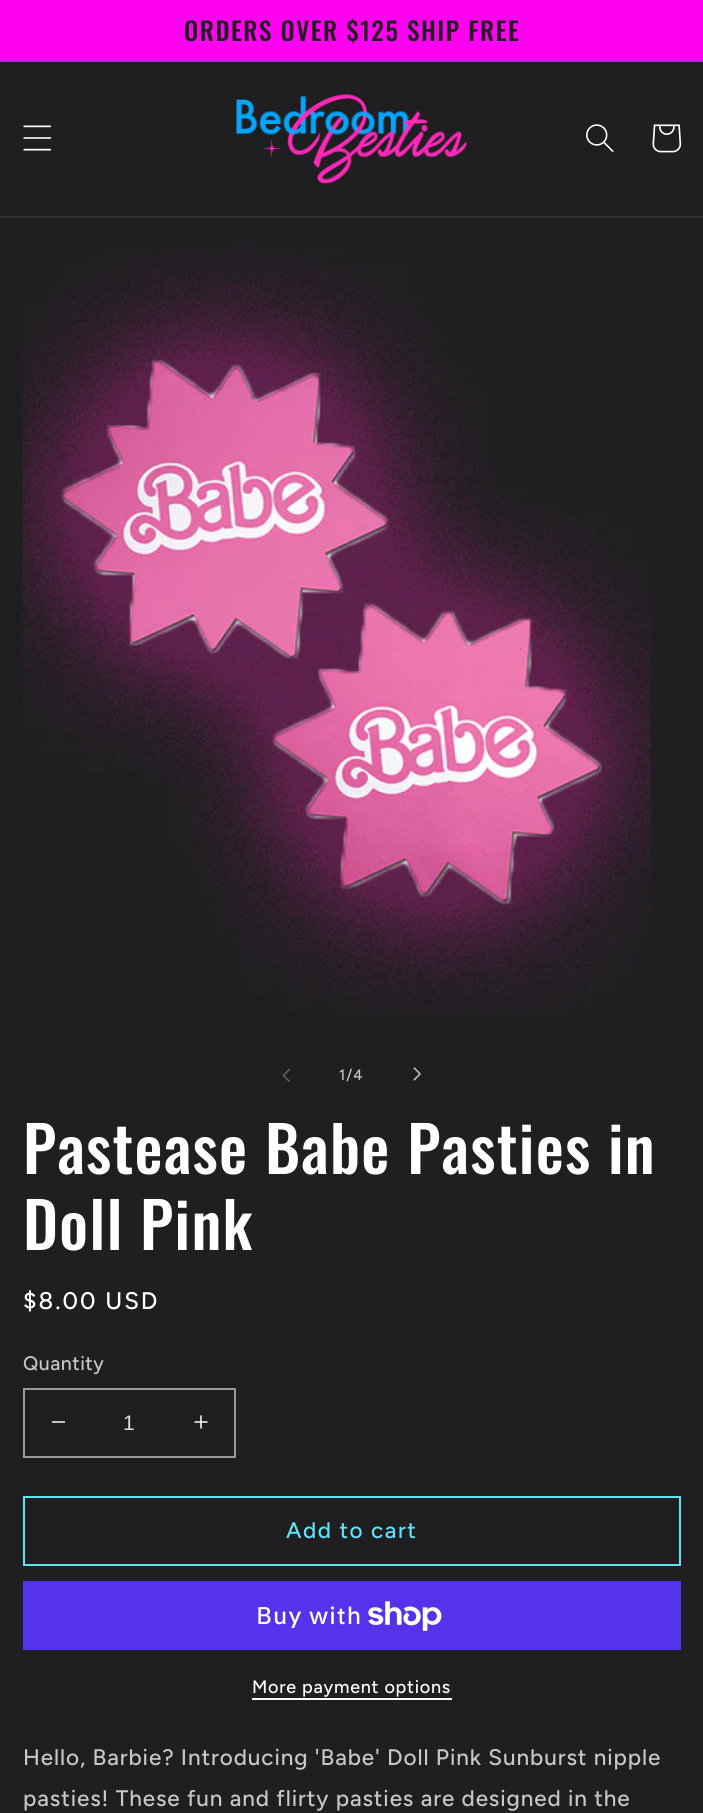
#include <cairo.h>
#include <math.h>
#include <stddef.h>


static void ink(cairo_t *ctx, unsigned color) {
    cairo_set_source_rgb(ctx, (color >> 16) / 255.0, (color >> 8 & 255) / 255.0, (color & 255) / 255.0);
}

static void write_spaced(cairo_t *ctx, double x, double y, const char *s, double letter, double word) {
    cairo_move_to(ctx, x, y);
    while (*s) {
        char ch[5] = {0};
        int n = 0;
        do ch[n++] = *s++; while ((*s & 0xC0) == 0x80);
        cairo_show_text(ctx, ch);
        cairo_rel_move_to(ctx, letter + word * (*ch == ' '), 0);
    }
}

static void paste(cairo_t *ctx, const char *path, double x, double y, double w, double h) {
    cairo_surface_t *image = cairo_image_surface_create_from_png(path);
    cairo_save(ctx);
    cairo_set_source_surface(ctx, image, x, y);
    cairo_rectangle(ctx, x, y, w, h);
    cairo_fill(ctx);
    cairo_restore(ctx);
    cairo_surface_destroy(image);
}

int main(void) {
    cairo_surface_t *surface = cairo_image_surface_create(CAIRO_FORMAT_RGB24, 703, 1813);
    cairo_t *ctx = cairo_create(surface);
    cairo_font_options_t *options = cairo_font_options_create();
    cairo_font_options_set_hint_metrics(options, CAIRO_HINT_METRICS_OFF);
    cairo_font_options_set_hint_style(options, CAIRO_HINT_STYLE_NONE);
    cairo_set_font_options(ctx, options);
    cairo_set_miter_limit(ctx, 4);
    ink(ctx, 0x1F1F21);
    cairo_paint(ctx);
    ink(ctx, 0xFF00F0);
    cairo_rectangle(ctx, 0, 0, 703, 60);
    cairo_fill(ctx);
    ink(ctx, 0xED02DF);
    cairo_rectangle(ctx, 0, 60, 703, 2);
    cairo_fill(ctx);
    cairo_select_font_face(ctx, "Oswald Medium", CAIRO_FONT_SLANT_NORMAL, CAIRO_FONT_WEIGHT_NORMAL);
    cairo_set_font_size(ctx, 25.25);
    ink(ctx, 0x1F1F21);
    write_spaced(ctx, 184, 41, "ORDERS OVER $125 SHIP FREE", 1.5, 0);
    ink(ctx, 0x313133);
    cairo_rectangle(ctx, 0, 216, 703, 2);
    cairo_fill(ctx);
    paste(ctx, "media/1.png", 23, 125, 29, 26);
    paste(ctx, "media/2.png", 236, 94, 231, 90);
    paste(ctx, "media/3.png", 586, 124, 28, 28);
    paste(ctx, "media/4.png", 652, 124, 30, 29);
    paste(ctx, "media/5.png", 22, 243, 629, 775);
    paste(ctx, "media/6.png", 282, 1068, 8, 14);
    cairo_select_font_face(ctx, "Figtree Medium", CAIRO_FONT_SLANT_NORMAL, CAIRO_FONT_WEIGHT_NORMAL);
    cairo_set_font_size(ctx, 15);
    ink(ctx, 0xC7C7C8);
    write_spaced(ctx, 339, 1080, "1/4", 1, 0);
    paste(ctx, "media/7.png", 413, 1067, 8, 14);
    cairo_select_font_face(ctx, "Oswald Medium", CAIRO_FONT_SLANT_NORMAL, CAIRO_FONT_WEIGHT_NORMAL);
    cairo_set_font_size(ctx, 63);
    ink(ctx, 0xFFFFFF);
    write_spaced(ctx, 23, 1174, "Pastease Babe Pasties in", 1.25, 0);
    write_spaced(ctx, 23, 1250, "Doll Pink", 1.25, 0);
    cairo_select_font_face(ctx, "Figtree Medium", CAIRO_FONT_SLANT_NORMAL, CAIRO_FONT_WEIGHT_NORMAL);
    cairo_set_font_size(ctx, 24);
    write_spaced(ctx, 23, 1309, "$8.00 USD", 2, 0);
    cairo_set_font_size(ctx, 19.5);
    ink(ctx, 0xC7C7C8);
    write_spaced(ctx, 23, 1370, "Quantity", 0.5, 0);
    paste(ctx, "media/8.png", 51, 1421, 15, 2);
    paste(ctx, "media/9.png", 194, 1415, 14, 14);
    cairo_rectangle(ctx, 24, 1389, 211, 68);
    ink(ctx, 0x9A9A9B);
    cairo_stroke(ctx);
    cairo_select_font_face(ctx, "Liberation Sans", CAIRO_FONT_SLANT_NORMAL, CAIRO_FONT_WEIGHT_NORMAL);
    cairo_set_font_size(ctx, 21);
    ink(ctx, 0xDDDDDE);
    cairo_move_to(ctx, 123, 1430);
    cairo_show_text(ctx, "1");
    cairo_rectangle(ctx, 24, 1497, 656, 68);
    ink(ctx, 0x5FE4F9);
    cairo_stroke(ctx);
    cairo_select_font_face(ctx, "Figtree Medium", CAIRO_FONT_SLANT_NORMAL, CAIRO_FONT_WEIGHT_NORMAL);
    cairo_set_font_size(ctx, 22.5);
    write_spaced(ctx, 286, 1538, "Add to cart", 1.5, 0);
    ink(ctx, 0x5433EB);
    cairo_rectangle(ctx, 23, 1581, 658, 69);
    cairo_fill(ctx);
    cairo_select_font_face(ctx, "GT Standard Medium", CAIRO_FONT_SLANT_NORMAL, CAIRO_FONT_WEIGHT_NORMAL);
    cairo_set_font_size(ctx, 24);
    ink(ctx, 0xFFFFFF);
    write_spaced(ctx, 256, 1624, "Buy with", 0.9, 0);
    paste(ctx, "media/10.png", 368, 1601, 74, 30);
    cairo_select_font_face(ctx, "Figtree Medium", CAIRO_FONT_SLANT_NORMAL, CAIRO_FONT_WEIGHT_NORMAL);
    cairo_set_font_size(ctx, 18);
    write_spaced(ctx, 252, 1693, "More payment options", 0.75, 0);
    cairo_rectangle(ctx, 252, 1698, 200, 2);
    cairo_fill(ctx);
    cairo_set_font_size(ctx, 22.5);
    ink(ctx, 0xC7C7C8);
    write_spaced(ctx, 23, 1765, "Hello, Barbie? Introducing 'Babe' Doll Pink Sunburst nipple", 0.9, 0);
    write_spaced(ctx, 23, 1806, "pasties! These fun and flirty pasties are designed in the", 0.9, 0);
    cairo_surface_write_to_png(surface, "image.png");
    cairo_font_options_destroy(options);
    cairo_destroy(ctx);
    cairo_surface_destroy(surface);
    return 0;
}
